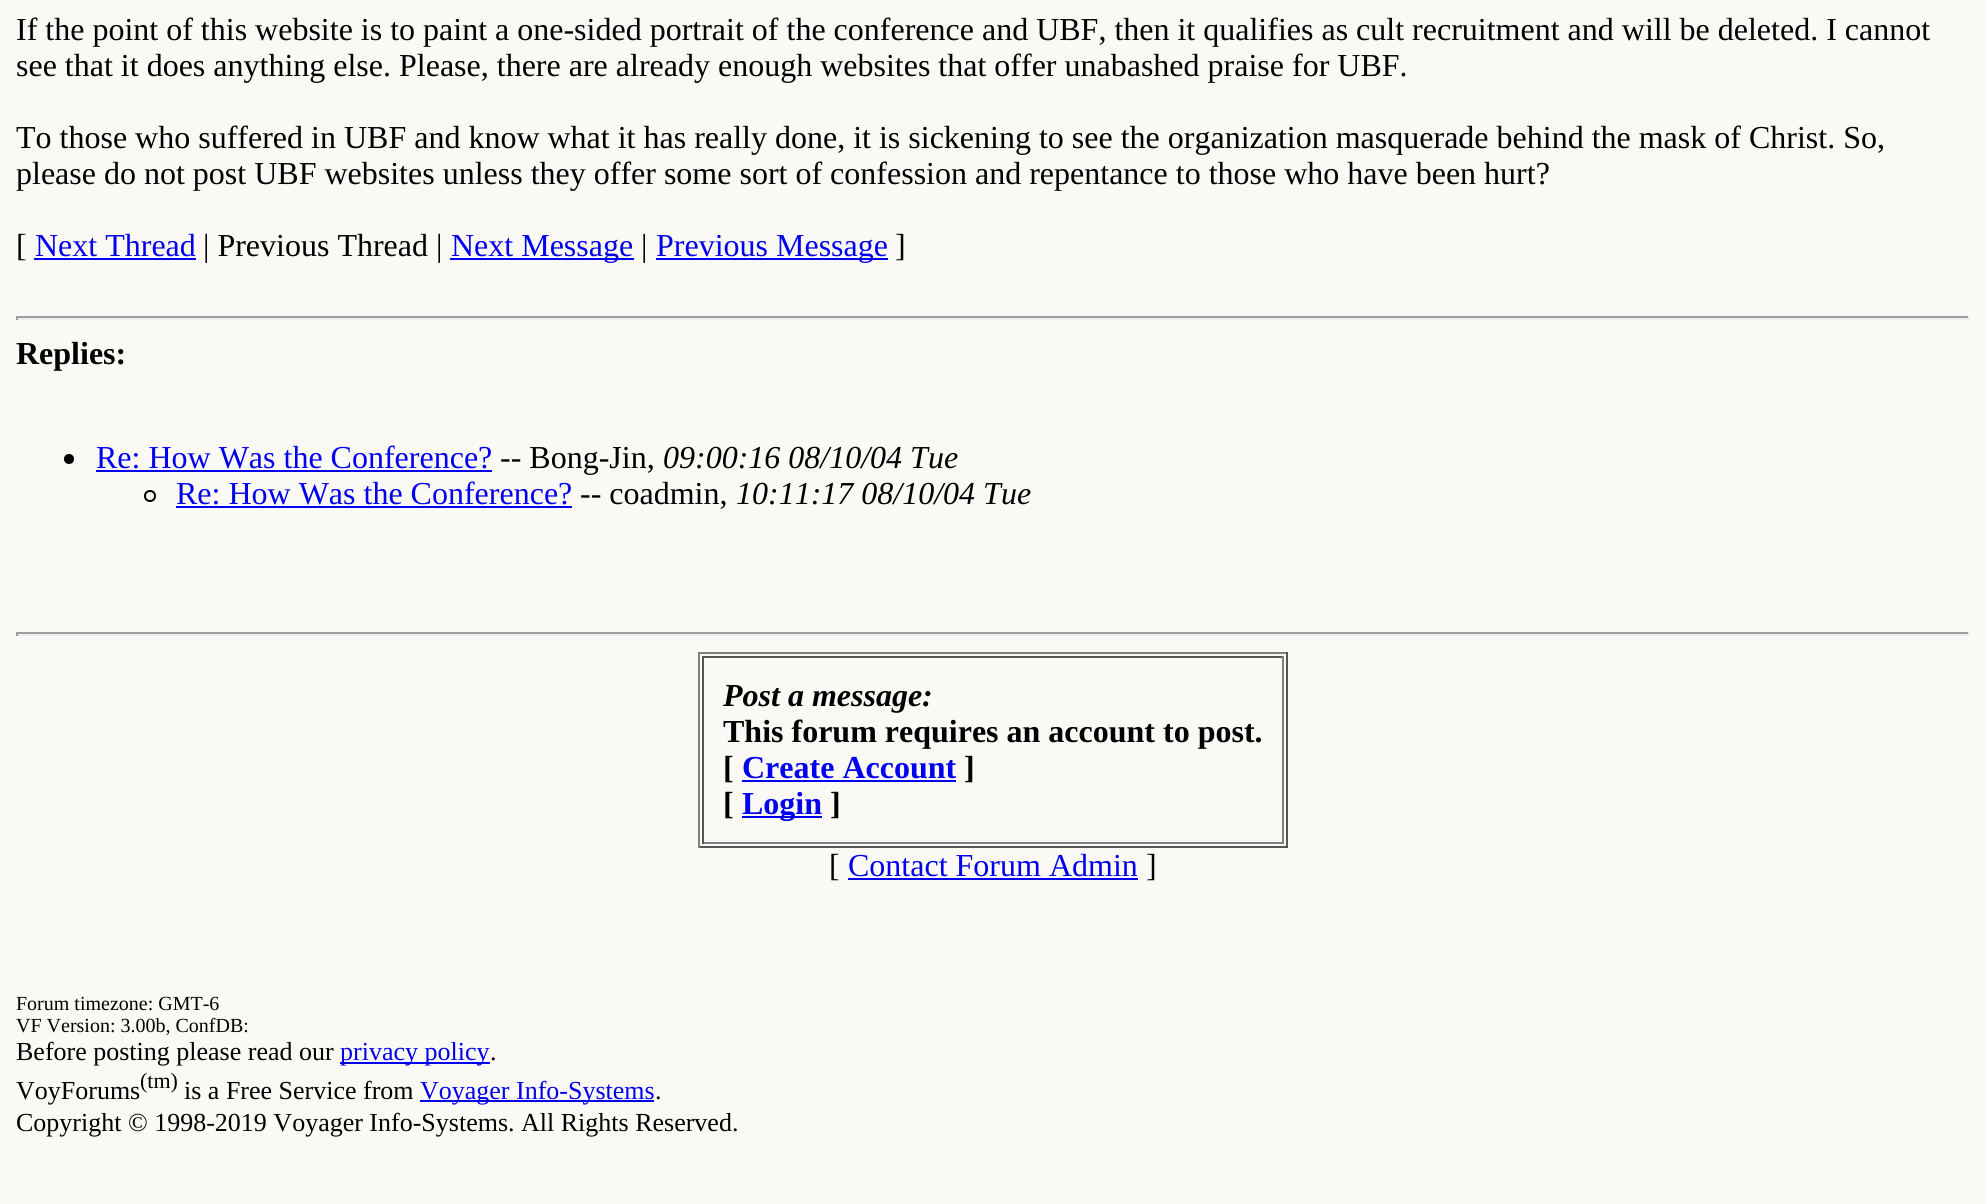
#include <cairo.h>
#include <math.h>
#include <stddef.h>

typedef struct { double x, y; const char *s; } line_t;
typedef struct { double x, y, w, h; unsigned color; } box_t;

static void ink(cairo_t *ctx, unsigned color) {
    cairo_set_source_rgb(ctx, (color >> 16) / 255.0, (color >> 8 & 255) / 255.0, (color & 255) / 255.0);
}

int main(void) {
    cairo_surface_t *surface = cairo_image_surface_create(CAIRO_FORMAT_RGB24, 1985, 1204);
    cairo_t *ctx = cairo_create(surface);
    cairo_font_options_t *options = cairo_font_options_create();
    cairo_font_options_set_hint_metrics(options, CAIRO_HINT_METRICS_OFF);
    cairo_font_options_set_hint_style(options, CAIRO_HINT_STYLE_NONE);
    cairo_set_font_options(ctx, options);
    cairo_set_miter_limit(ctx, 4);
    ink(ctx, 0xFAF9F6);
    cairo_paint(ctx);
    cairo_select_font_face(ctx, "Liberation Serif", CAIRO_FONT_SLANT_NORMAL, CAIRO_FONT_WEIGHT_NORMAL);
    cairo_set_font_size(ctx, 32);
    ink(ctx, 0x000000);
    {
        static const line_t items[] = {
            {16, 40, "If the point of this website is to paint a one-sided portrait of the conference and UBF, then it qualifies as cult recruitment and will be deleted. I cannot"},
            {16, 76, "see that it does anything else. Please, there are already enough websites that offer unabashed praise for UBF."},
            {16, 148, "To those who suffered in UBF and know what it has really done, it is sickening to see the organization masquerade behind the mask of Christ. So,"},
            {16, 184, "please do not post UBF websites unless they offer some sort of confession and repentance to those who have been hurt?"},
            {16, 256, "["},
        };
        for (size_t i = 0; i < sizeof items / sizeof *items; i++) {
            cairo_move_to(ctx, items[i].x, items[i].y);
            cairo_show_text(ctx, items[i].s);
        }
    }
    ink(ctx, 0x0000EE);
    cairo_move_to(ctx, 35, 256);
    cairo_show_text(ctx, "Next Thread");
    cairo_rectangle(ctx, 34, 258, 162, 2);
    cairo_fill(ctx);
    ink(ctx, 0x000000);
    cairo_move_to(ctx, 203, 256);
    cairo_show_text(ctx, "| Previous Thread |");
    ink(ctx, 0x0000EE);
    cairo_rectangle(ctx, 450, 258, 184, 2);
    cairo_fill(ctx);
    cairo_move_to(ctx, 451, 256);
    cairo_show_text(ctx, "Next Message");
    ink(ctx, 0x000000);
    cairo_move_to(ctx, 641, 256);
    cairo_show_text(ctx, "|");
    ink(ctx, 0x0000EE);
    cairo_rectangle(ctx, 656, 258, 232, 2);
    cairo_fill(ctx);
    cairo_move_to(ctx, 656, 256);
    cairo_show_text(ctx, "Previous Message");
    ink(ctx, 0x000000);
    cairo_move_to(ctx, 895, 256);
    cairo_show_text(ctx, "]");
    {
        static const box_t items[] = {
            {16, 316, 1954, 2, 0x9F9F9F},
            {1968, 316, 2, 4, 0xEEEEEE},
            {16, 318, 1954, 2, 0xEEEEEE},
            {16, 316, 2, 4, 0x9F9F9F},
        };
        for (size_t i = 0; i < sizeof items / sizeof *items; i++) {
            ink(ctx, items[i].color);
            cairo_rectangle(ctx, items[i].x, items[i].y, items[i].w, items[i].h);
            cairo_fill(ctx);
        }
    }
    cairo_select_font_face(ctx, "Liberation Serif", CAIRO_FONT_SLANT_NORMAL, CAIRO_FONT_WEIGHT_BOLD);
    ink(ctx, 0x000000);
    cairo_move_to(ctx, 16, 364);
    cairo_show_text(ctx, "Replies:");
    cairo_new_path(ctx);
    cairo_arc(ctx, 69, 459, 5, 0, 2 * M_PI);
    cairo_fill(ctx);
    cairo_select_font_face(ctx, "Liberation Serif", CAIRO_FONT_SLANT_NORMAL, CAIRO_FONT_WEIGHT_NORMAL);
    ink(ctx, 0x0000EE);
    cairo_move_to(ctx, 96, 468);
    cairo_show_text(ctx, "Re: How Was the Conference?");
    cairo_rectangle(ctx, 96, 470, 396, 2);
    cairo_fill(ctx);
    ink(ctx, 0x000000);
    cairo_move_to(ctx, 500, 468);
    cairo_show_text(ctx, "-- Bong-Jin,");
    cairo_select_font_face(ctx, "Liberation Serif", CAIRO_FONT_SLANT_ITALIC, CAIRO_FONT_WEIGHT_NORMAL);
    cairo_move_to(ctx, 663, 468);
    cairo_show_text(ctx, "09:00:16 08/10/04 Tue");
    cairo_new_path(ctx);
    cairo_arc(ctx, 150, 496, 5, 0, 2 * M_PI);
    cairo_stroke(ctx);
    cairo_select_font_face(ctx, "Liberation Serif", CAIRO_FONT_SLANT_NORMAL, CAIRO_FONT_WEIGHT_NORMAL);
    ink(ctx, 0x0000EE);
    cairo_move_to(ctx, 176, 504);
    cairo_show_text(ctx, "Re: How Was the Conference?");
    cairo_rectangle(ctx, 176, 506, 396, 2);
    cairo_fill(ctx);
    ink(ctx, 0x000000);
    cairo_move_to(ctx, 580, 504);
    cairo_show_text(ctx, "-- coadmin,");
    cairo_select_font_face(ctx, "Liberation Serif", CAIRO_FONT_SLANT_ITALIC, CAIRO_FONT_WEIGHT_NORMAL);
    cairo_move_to(ctx, 736, 504);
    cairo_show_text(ctx, "10:11:17 08/10/04 Tue");
    {
        static const box_t items[] = {
            {16, 632, 1954, 2, 0x9F9F9F},
            {1968, 632, 2, 4, 0xEEEEEE},
            {16, 634, 1954, 2, 0xEEEEEE},
            {16, 632, 2, 4, 0x9F9F9F},
            {698, 652, 590, 2, 0x808080},
            {1286, 652, 2, 196, 0x555555},
            {698, 846, 590, 2, 0x555555},
            {698, 652, 2, 196, 0x808080},
            {702, 656, 582, 2, 0x555555},
            {1282, 656, 2, 188, 0x808080},
            {702, 842, 582, 2, 0x808080},
            {702, 656, 2, 188, 0x555555},
        };
        for (size_t i = 0; i < sizeof items / sizeof *items; i++) {
            ink(ctx, items[i].color);
            cairo_rectangle(ctx, items[i].x, items[i].y, items[i].w, items[i].h);
            cairo_fill(ctx);
        }
    }
    cairo_select_font_face(ctx, "Liberation Serif", CAIRO_FONT_SLANT_ITALIC, CAIRO_FONT_WEIGHT_BOLD);
    ink(ctx, 0x000000);
    cairo_move_to(ctx, 723, 706);
    cairo_show_text(ctx, "Post a message:");
    cairo_select_font_face(ctx, "Liberation Serif", CAIRO_FONT_SLANT_NORMAL, CAIRO_FONT_WEIGHT_BOLD);
    cairo_move_to(ctx, 723, 742);
    cairo_show_text(ctx, "This forum requires an account to post.");
    cairo_move_to(ctx, 723, 778);
    cairo_show_text(ctx, "[");
    ink(ctx, 0x0000EE);
    cairo_move_to(ctx, 742, 778);
    cairo_show_text(ctx, "Create Account");
    cairo_rectangle(ctx, 742, 780, 214, 2);
    cairo_fill(ctx);
    ink(ctx, 0x000000);
    cairo_move_to(ctx, 964, 778);
    cairo_show_text(ctx, "]");
    cairo_move_to(ctx, 723, 814);
    cairo_show_text(ctx, "[");
    ink(ctx, 0x0000EE);
    cairo_rectangle(ctx, 742, 816, 80, 2);
    cairo_fill(ctx);
    cairo_move_to(ctx, 742, 814);
    cairo_show_text(ctx, "Login");
    ink(ctx, 0x000000);
    cairo_move_to(ctx, 830, 814);
    cairo_show_text(ctx, "]");
    cairo_select_font_face(ctx, "Liberation Serif", CAIRO_FONT_SLANT_NORMAL, CAIRO_FONT_WEIGHT_NORMAL);
    cairo_move_to(ctx, 829, 876);
    cairo_show_text(ctx, "[");
    ink(ctx, 0x0000EE);
    cairo_move_to(ctx, 848, 876);
    cairo_show_text(ctx, "Contact Forum Admin");
    cairo_rectangle(ctx, 848, 878, 290, 2);
    cairo_fill(ctx);
    ink(ctx, 0x000000);
    cairo_move_to(ctx, 1146, 876);
    cairo_show_text(ctx, "]");
    cairo_set_font_size(ctx, 20);
    cairo_move_to(ctx, 16, 1010);
    cairo_show_text(ctx, "Forum timezone: GMT-6");
    cairo_move_to(ctx, 16, 1032);
    cairo_show_text(ctx, "VF Version: 3.00b, ConfDB:");
    cairo_set_font_size(ctx, 26);
    cairo_move_to(ctx, 16, 1060);
    cairo_show_text(ctx, "Before posting please read our");
    ink(ctx, 0x0000EE);
    cairo_rectangle(ctx, 340, 1062, 150, 2);
    cairo_fill(ctx);
    cairo_move_to(ctx, 340, 1060);
    cairo_show_text(ctx, "privacy policy");
    ink(ctx, 0x000000);
    cairo_move_to(ctx, 490, 1060);
    cairo_show_text(ctx, ".");
    cairo_move_to(ctx, 16, 1099);
    cairo_show_text(ctx, "VoyForums");
    cairo_set_font_size(ctx, 22);
    cairo_move_to(ctx, 140, 1088);
    cairo_show_text(ctx, "(tm)");
    cairo_set_font_size(ctx, 26);
    cairo_move_to(ctx, 184, 1099);
    cairo_show_text(ctx, "is a Free Service from");
    ink(ctx, 0x0000EE);
    cairo_rectangle(ctx, 420, 1100, 234, 2);
    cairo_fill(ctx);
    cairo_move_to(ctx, 420, 1099);
    cairo_show_text(ctx, "Voyager Info-Systems");
    ink(ctx, 0x000000);
    cairo_move_to(ctx, 655, 1099);
    cairo_show_text(ctx, ".");
    cairo_move_to(ctx, 16, 1131);
    cairo_show_text(ctx, "Copyright © 1998-2019 Voyager Info-Systems. All Rights Reserved.");
    cairo_surface_write_to_png(surface, "image.png");
    cairo_font_options_destroy(options);
    cairo_destroy(ctx);
    cairo_surface_destroy(surface);
    return 0;
}
